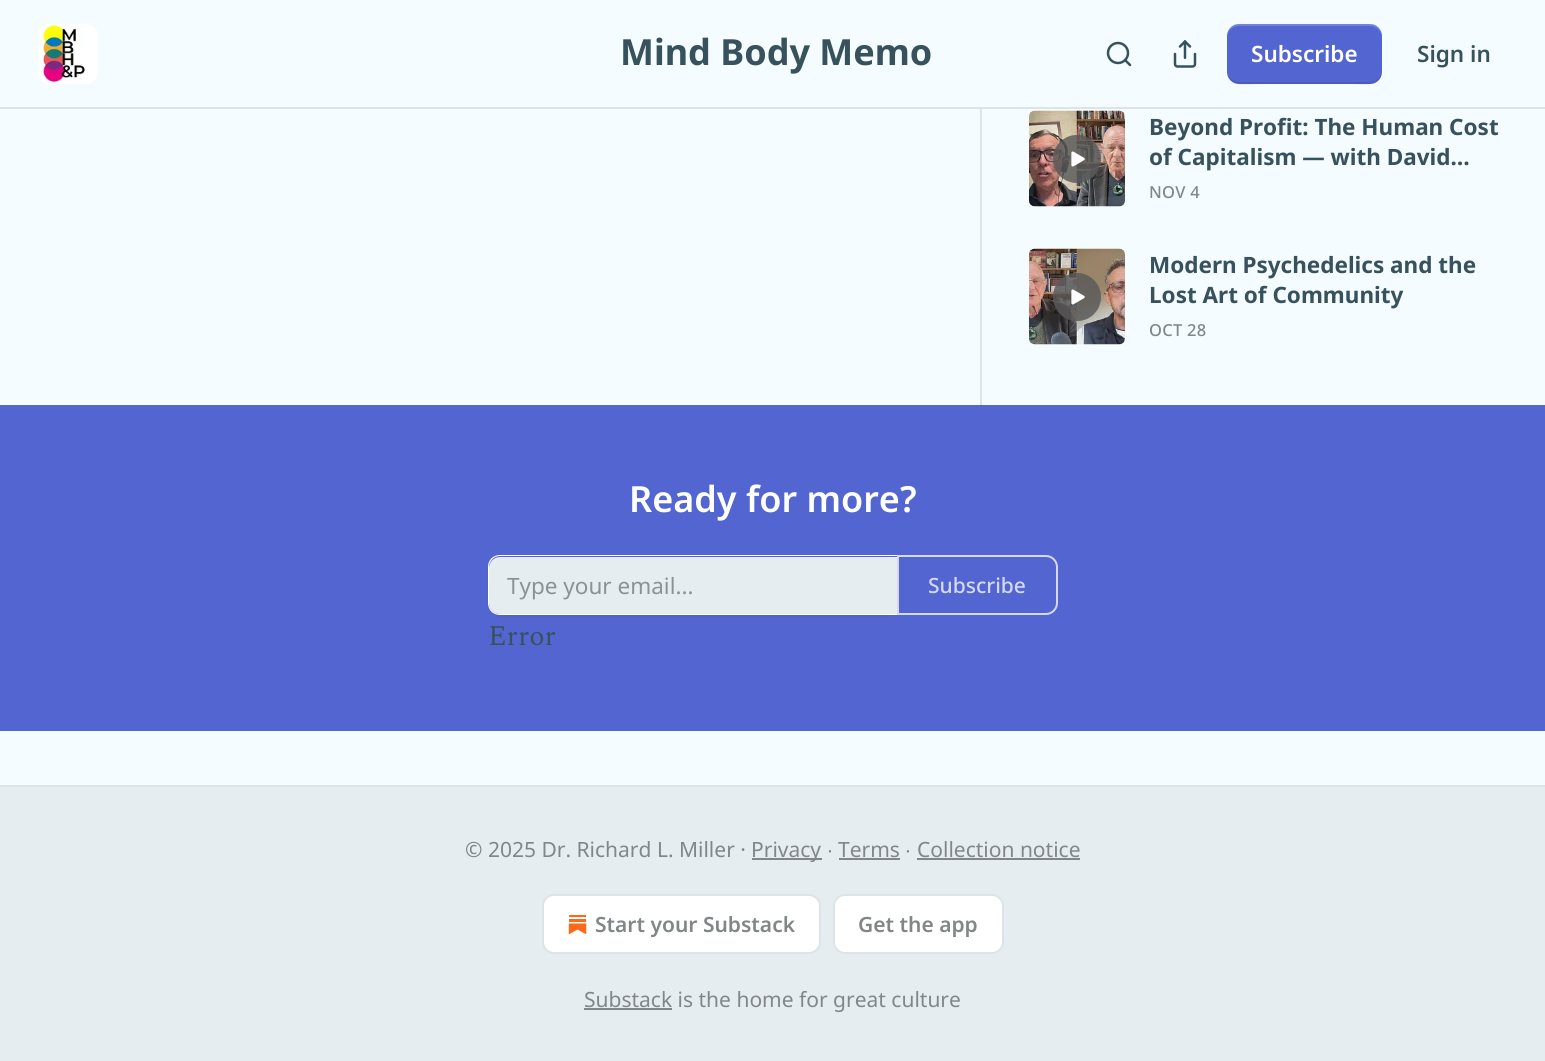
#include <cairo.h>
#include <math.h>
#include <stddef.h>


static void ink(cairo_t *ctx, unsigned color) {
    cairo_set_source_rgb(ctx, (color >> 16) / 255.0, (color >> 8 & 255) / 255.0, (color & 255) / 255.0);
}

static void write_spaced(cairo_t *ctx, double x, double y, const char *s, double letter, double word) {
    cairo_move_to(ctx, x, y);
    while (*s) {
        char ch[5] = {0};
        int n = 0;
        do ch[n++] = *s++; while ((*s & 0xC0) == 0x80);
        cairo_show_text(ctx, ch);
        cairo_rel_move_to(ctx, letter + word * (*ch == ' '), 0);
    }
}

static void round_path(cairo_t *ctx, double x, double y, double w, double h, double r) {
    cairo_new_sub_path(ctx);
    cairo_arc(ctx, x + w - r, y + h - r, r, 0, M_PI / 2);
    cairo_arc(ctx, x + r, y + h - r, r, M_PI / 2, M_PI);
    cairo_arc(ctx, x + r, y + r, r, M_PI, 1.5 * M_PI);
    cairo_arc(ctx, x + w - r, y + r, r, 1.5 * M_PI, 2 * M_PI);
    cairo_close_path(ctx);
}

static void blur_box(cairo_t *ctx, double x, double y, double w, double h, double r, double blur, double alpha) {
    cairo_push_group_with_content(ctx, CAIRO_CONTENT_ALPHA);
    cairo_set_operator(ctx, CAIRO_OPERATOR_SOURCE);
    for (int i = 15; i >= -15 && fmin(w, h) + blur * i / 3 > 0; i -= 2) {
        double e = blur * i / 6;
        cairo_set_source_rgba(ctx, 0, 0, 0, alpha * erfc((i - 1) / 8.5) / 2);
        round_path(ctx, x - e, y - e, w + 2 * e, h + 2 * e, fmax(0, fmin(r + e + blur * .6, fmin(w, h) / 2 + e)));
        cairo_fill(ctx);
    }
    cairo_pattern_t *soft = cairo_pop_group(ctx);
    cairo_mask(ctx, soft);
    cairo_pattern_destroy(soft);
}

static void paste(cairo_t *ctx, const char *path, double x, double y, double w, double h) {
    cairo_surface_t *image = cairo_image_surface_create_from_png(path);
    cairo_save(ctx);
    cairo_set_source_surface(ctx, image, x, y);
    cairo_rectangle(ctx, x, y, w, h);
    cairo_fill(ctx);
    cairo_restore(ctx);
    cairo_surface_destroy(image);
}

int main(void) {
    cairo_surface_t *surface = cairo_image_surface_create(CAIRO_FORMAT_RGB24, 1545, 1061);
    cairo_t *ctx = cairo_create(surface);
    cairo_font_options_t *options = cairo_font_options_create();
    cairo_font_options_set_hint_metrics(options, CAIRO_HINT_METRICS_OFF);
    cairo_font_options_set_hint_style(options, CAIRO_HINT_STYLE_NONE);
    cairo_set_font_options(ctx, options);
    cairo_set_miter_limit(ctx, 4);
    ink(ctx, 0xF5FCFF);
    cairo_paint(ctx);
    ink(ctx, 0xDDE3E6);
    cairo_rectangle(ctx, 0, 107, 1545, 2);
    cairo_fill(ctx);
    ink(ctx, 0xFFFFFF);
    round_path(ctx, 38, 24, 60, 60, 12);
    cairo_fill(ctx);
    paste(ctx, "media/1.png", 38, 24, 47, 60);
    cairo_select_font_face(ctx, "Noto Sans", CAIRO_FONT_SLANT_NORMAL, CAIRO_FONT_WEIGHT_BOLD);
    cairo_set_font_size(ctx, 36);
    ink(ctx, 0x37525D);
    cairo_move_to(ctx, 620, 65);
    cairo_show_text(ctx, "Mind Body Memo");
    cairo_new_path(ctx);
    cairo_arc(ctx, 1118, 53, 10, 0, 2 * M_PI);
    cairo_set_line_width(ctx, 2.5);
    cairo_stroke(ctx);
    cairo_new_path(ctx);
    cairo_move_to(ctx, 1130, 65);
    cairo_line_to(ctx, 1125, 60);
    cairo_set_line_cap(ctx, CAIRO_LINE_CAP_ROUND);
    cairo_set_line_join(ctx, CAIRO_LINE_JOIN_ROUND);
    cairo_stroke(ctx);
    paste(ctx, "media/2.png", 1173, 40, 24, 28);
    ink(ctx, 0x5365D0);
    round_path(ctx, 1227, 24, 155, 60, 12);
    cairo_fill(ctx);
    cairo_set_source_rgba(ctx, 0, 0, 0, 0.1);
    cairo_new_path(ctx);
    cairo_move_to(ctx, 1227, 70);
    cairo_curve_to(ctx, 1227, 89, 1247, 84, 1261, 84);
    cairo_line_to(ctx, 1348, 84);
    cairo_curve_to(ctx, 1362, 84, 1382, 89, 1382, 70);
    cairo_curve_to(ctx, 1382, 77, 1376, 82, 1370, 82);
    cairo_line_to(ctx, 1239, 82);
    cairo_curve_to(ctx, 1232, 82, 1227, 77, 1227, 70);
    cairo_close_path(ctx);
    cairo_fill(ctx);
    cairo_set_source_rgba(ctx, 1, 1, 1, 0.2);
    cairo_new_path(ctx);
    cairo_move_to(ctx, 1239, 26);
    cairo_line_to(ctx, 1370, 26);
    cairo_curve_to(ctx, 1376, 26, 1382, 31, 1382, 38);
    cairo_curve_to(ctx, 1382, 19, 1362, 24, 1348, 24);
    cairo_line_to(ctx, 1261, 24);
    cairo_curve_to(ctx, 1247, 24, 1227, 19, 1227, 38);
    cairo_curve_to(ctx, 1227, 31, 1232, 26, 1239, 26);
    cairo_close_path(ctx);
    cairo_fill(ctx);
    cairo_select_font_face(ctx, "Noto Sans SemiBold", CAIRO_FONT_SLANT_NORMAL, CAIRO_FONT_WEIGHT_NORMAL);
    cairo_set_font_size(ctx, 22.5);
    ink(ctx, 0xFFFFFF);
    cairo_move_to(ctx, 1251, 62);
    cairo_show_text(ctx, "Subscribe");
    ink(ctx, 0x37525D);
    cairo_move_to(ctx, 1417, 62);
    cairo_show_text(ctx, "Sign in");
    ink(ctx, 0xDDE3E6);
    cairo_rectangle(ctx, 980, 109, 2, 296);
    cairo_fill(ctx);
    paste(ctx, "media/3.png", 1029, 110, 96, 97);
    cairo_set_source_rgba(ctx, 0.157, 0.157, 0.157, 0.75);
    cairo_arc(ctx, 1077, 159, 24, 0, 2 * M_PI);
    cairo_fill(ctx);
    cairo_set_source_rgba(ctx, 0, 0, 0, 0.1);
    cairo_new_path(ctx);
    cairo_move_to(ctx, 1077, 135);
    cairo_curve_to(ctx, 1071, 135, 1065, 137, 1060, 142);
    cairo_curve_to(ctx, 1045, 157, 1055, 183, 1077, 183);
    cairo_curve_to(ctx, 1099, 183, 1109, 157, 1094, 142);
    cairo_curve_to(ctx, 1089, 137, 1083, 135, 1077, 135);
    cairo_close_path(ctx);
    cairo_fill(ctx);
    cairo_set_source_rgba(ctx, 1, 1, 1, 0.2);
    cairo_new_path(ctx);
    cairo_move_to(ctx, 1077, 135);
    cairo_curve_to(ctx, 1055, 135, 1045, 161, 1060, 176);
    cairo_curve_to(ctx, 1065, 181, 1071, 183, 1077, 183);
    cairo_curve_to(ctx, 1083, 183, 1089, 181, 1094, 176);
    cairo_curve_to(ctx, 1109, 161, 1099, 135, 1077, 135);
    cairo_close_path(ctx);
    cairo_fill(ctx);
    paste(ctx, "media/4.png", 1071, 151, 14, 16);
    cairo_select_font_face(ctx, "Noto Sans", CAIRO_FONT_SLANT_NORMAL, CAIRO_FONT_WEIGHT_BOLD);
    ink(ctx, 0x37525D);
    cairo_move_to(ctx, 1149, 135);
    cairo_show_text(ctx, "Beyond Profit: The Human Cost");
    cairo_move_to(ctx, 1149, 165);
    cairo_show_text(ctx, "of Capitalism — with David…");
    cairo_select_font_face(ctx, "Noto Sans Medium", CAIRO_FONT_SLANT_NORMAL, CAIRO_FONT_WEIGHT_NORMAL);
    cairo_set_font_size(ctx, 16.5);
    ink(ctx, 0x828687);
    write_spaced(ctx, 1149, 198, "NOV 4", 0.25, 0);
    paste(ctx, "media/5.png", 1029, 248, 96, 97);
    cairo_set_source_rgba(ctx, 0.157, 0.157, 0.157, 0.75);
    cairo_arc(ctx, 1077, 297, 24, 0, 2 * M_PI);
    cairo_fill(ctx);
    cairo_set_source_rgba(ctx, 0, 0, 0, 0.1);
    cairo_new_path(ctx);
    cairo_move_to(ctx, 1077, 273);
    cairo_curve_to(ctx, 1071, 273, 1065, 275, 1060, 280);
    cairo_curve_to(ctx, 1045, 295, 1055, 321, 1077, 321);
    cairo_curve_to(ctx, 1099, 321, 1109, 295, 1094, 280);
    cairo_curve_to(ctx, 1089, 275, 1083, 273, 1077, 273);
    cairo_close_path(ctx);
    cairo_fill(ctx);
    cairo_set_source_rgba(ctx, 1, 1, 1, 0.2);
    cairo_new_path(ctx);
    cairo_move_to(ctx, 1077, 273);
    cairo_curve_to(ctx, 1055, 273, 1045, 299, 1060, 314);
    cairo_curve_to(ctx, 1065, 319, 1071, 321, 1077, 321);
    cairo_curve_to(ctx, 1083, 321, 1089, 319, 1094, 314);
    cairo_curve_to(ctx, 1109, 299, 1099, 273, 1077, 273);
    cairo_close_path(ctx);
    cairo_fill(ctx);
    paste(ctx, "media/6.png", 1071, 289, 14, 16);
    cairo_select_font_face(ctx, "Noto Sans", CAIRO_FONT_SLANT_NORMAL, CAIRO_FONT_WEIGHT_BOLD);
    cairo_set_font_size(ctx, 22.5);
    ink(ctx, 0x37525D);
    cairo_move_to(ctx, 1149, 273);
    cairo_show_text(ctx, "Modern Psychedelics and the");
    cairo_move_to(ctx, 1149, 303);
    cairo_show_text(ctx, "Lost Art of Community");
    cairo_select_font_face(ctx, "Noto Sans Medium", CAIRO_FONT_SLANT_NORMAL, CAIRO_FONT_WEIGHT_NORMAL);
    cairo_set_font_size(ctx, 16.5);
    ink(ctx, 0x828687);
    write_spaced(ctx, 1149, 336, "OCT 28", 0.25, 0);
    ink(ctx, 0x5365D0);
    cairo_rectangle(ctx, 0, 405, 1545, 326);
    cairo_fill(ctx);
    cairo_select_font_face(ctx, "Noto Sans SemiBold", CAIRO_FONT_SLANT_NORMAL, CAIRO_FONT_WEIGHT_NORMAL);
    cairo_set_font_size(ctx, 36);
    ink(ctx, 0xFFFFFF);
    cairo_move_to(ctx, 629, 512);
    cairo_show_text(ctx, "Ready for more?");
    ink(ctx, 0x000000);
    blur_box(ctx, 488, 557, 409, 60, 12, 1.5, 0.05);
    ink(ctx, 0xE6EDF0);
    cairo_new_path(ctx);
    cairo_move_to(ctx, 500, 557);
    cairo_line_to(ctx, 897, 557);
    cairo_line_to(ctx, 897, 614);
    cairo_line_to(ctx, 500, 614);
    cairo_curve_to(ctx, 494, 614, 489, 609, 489, 603);
    cairo_line_to(ctx, 489, 568);
    cairo_curve_to(ctx, 489, 562, 494, 557, 500, 557);
    cairo_close_path(ctx);
    cairo_fill(ctx);
    ink(ctx, 0xFFFFFF);
    cairo_set_fill_rule(ctx, CAIRO_FILL_RULE_EVEN_ODD);
    cairo_new_path(ctx);
    cairo_move_to(ctx, 500, 555);
    cairo_line_to(ctx, 897, 555);
    cairo_line_to(ctx, 897, 615);
    cairo_line_to(ctx, 500, 615);
    cairo_curve_to(ctx, 493, 615, 488, 610, 488, 603);
    cairo_line_to(ctx, 488, 567);
    cairo_curve_to(ctx, 488, 560, 493, 555, 500, 555);
    cairo_close_path(ctx);
    cairo_move_to(ctx, 500, 556);
    cairo_line_to(ctx, 897, 556);
    cairo_line_to(ctx, 897, 614);
    cairo_line_to(ctx, 500, 614);
    cairo_curve_to(ctx, 494, 614, 489, 609, 489, 603);
    cairo_line_to(ctx, 489, 567);
    cairo_curve_to(ctx, 489, 561, 494, 556, 500, 556);
    cairo_close_path(ctx);
    cairo_fill(ctx);
    cairo_select_font_face(ctx, "Noto Sans", CAIRO_FONT_SLANT_NORMAL, CAIRO_FONT_WEIGHT_NORMAL);
    cairo_set_font_size(ctx, 22.5);
    ink(ctx, 0x8D9192);
    cairo_move_to(ctx, 507, 594);
    cairo_show_text(ctx, "Type your email...");
    cairo_set_source_rgba(ctx, 0.325, 0.396, 0.816, 0.75);
    cairo_new_path(ctx);
    cairo_move_to(ctx, 898, 556);
    cairo_line_to(ctx, 1046, 556);
    cairo_curve_to(ctx, 1052, 556, 1057, 561, 1057, 567);
    cairo_line_to(ctx, 1057, 603);
    cairo_curve_to(ctx, 1057, 609, 1052, 614, 1046, 614);
    cairo_line_to(ctx, 898, 614);
    cairo_close_path(ctx);
    cairo_fill_preserve(ctx);
    ink(ctx, 0xD4D8F3);
    cairo_set_line_width(ctx, 2);
    cairo_set_line_cap(ctx, CAIRO_LINE_CAP_BUTT);
    cairo_set_line_join(ctx, CAIRO_LINE_JOIN_MITER);
    cairo_stroke(ctx);
    cairo_select_font_face(ctx, "Noto Sans Medium", CAIRO_FONT_SLANT_NORMAL, CAIRO_FONT_WEIGHT_NORMAL);
    cairo_set_font_size(ctx, 21);
    ink(ctx, 0xD4D9F3);
    cairo_move_to(ctx, 928, 593);
    cairo_show_text(ctx, "Subscribe");
    cairo_select_font_face(ctx, "Spectral", CAIRO_FONT_SLANT_NORMAL, CAIRO_FONT_WEIGHT_NORMAL);
    cairo_set_font_size(ctx, 28.5);
    ink(ctx, 0x37525D);
    cairo_move_to(ctx, 488, 645);
    cairo_show_text(ctx, "Error");
    ink(ctx, 0xE6EDF0);
    cairo_rectangle(ctx, 0, 787, 1545, 274);
    cairo_fill(ctx);
    ink(ctx, 0xDDE3E6);
    cairo_rectangle(ctx, 0, 785, 1545, 2);
    cairo_fill(ctx);
    cairo_select_font_face(ctx, "Noto Sans", CAIRO_FONT_SLANT_NORMAL, CAIRO_FONT_WEIGHT_NORMAL);
    cairo_set_font_size(ctx, 21);
    ink(ctx, 0x828687);
    cairo_move_to(ctx, 465, 857);
    cairo_show_text(ctx, "© 2025 Dr. Richard L. Miller ·");
    cairo_rectangle(ctx, 752, 858, 70, 2);
    cairo_fill(ctx);
    cairo_move_to(ctx, 751, 857);
    cairo_show_text(ctx, "Privacy");
    cairo_select_font_face(ctx, "Liberation Sans", CAIRO_FONT_SLANT_NORMAL, CAIRO_FONT_WEIGHT_NORMAL);
    cairo_move_to(ctx, 827, 857);
    cairo_show_text(ctx, "∙");
    cairo_select_font_face(ctx, "Noto Sans", CAIRO_FONT_SLANT_NORMAL, CAIRO_FONT_WEIGHT_NORMAL);
    cairo_move_to(ctx, 838, 857);
    cairo_show_text(ctx, "Terms");
    cairo_rectangle(ctx, 839, 858, 61, 2);
    cairo_fill(ctx);
    cairo_select_font_face(ctx, "Liberation Sans", CAIRO_FONT_SLANT_NORMAL, CAIRO_FONT_WEIGHT_NORMAL);
    cairo_move_to(ctx, 905, 857);
    cairo_show_text(ctx, "∙");
    cairo_select_font_face(ctx, "Noto Sans", CAIRO_FONT_SLANT_NORMAL, CAIRO_FONT_WEIGHT_NORMAL);
    cairo_move_to(ctx, 917, 857);
    cairo_show_text(ctx, "Collection notice");
    cairo_rectangle(ctx, 917, 858, 163, 2);
    cairo_fill(ctx);
    ink(ctx, 0xFFFFFF);
    round_path(ctx, 543, 895, 277, 58, 11);
    cairo_fill_preserve(ctx);
    ink(ctx, 0xDDE3E6);
    cairo_stroke(ctx);
    paste(ctx, "media/7.png", 568, 915, 19, 20);
    cairo_select_font_face(ctx, "Noto Sans SemiBold", CAIRO_FONT_SLANT_NORMAL, CAIRO_FONT_WEIGHT_NORMAL);
    ink(ctx, 0x828687);
    cairo_move_to(ctx, 595, 932);
    cairo_show_text(ctx, "Start your Substack");
    ink(ctx, 0xFFFFFF);
    round_path(ctx, 834, 895, 169, 58, 11);
    cairo_fill_preserve(ctx);
    ink(ctx, 0xDDE3E6);
    cairo_stroke(ctx);
    ink(ctx, 0x828687);
    cairo_move_to(ctx, 858, 932);
    cairo_show_text(ctx, "Get the app");
    cairo_rectangle(ctx, 584, 1008, 88, 2);
    cairo_fill(ctx);
    cairo_select_font_face(ctx, "Noto Sans", CAIRO_FONT_SLANT_NORMAL, CAIRO_FONT_WEIGHT_NORMAL);
    cairo_move_to(ctx, 584, 1007);
    cairo_show_text(ctx, "Substack is the home for great culture");
    cairo_surface_write_to_png(surface, "image.png");
    cairo_font_options_destroy(options);
    cairo_destroy(ctx);
    cairo_surface_destroy(surface);
    return 0;
}
